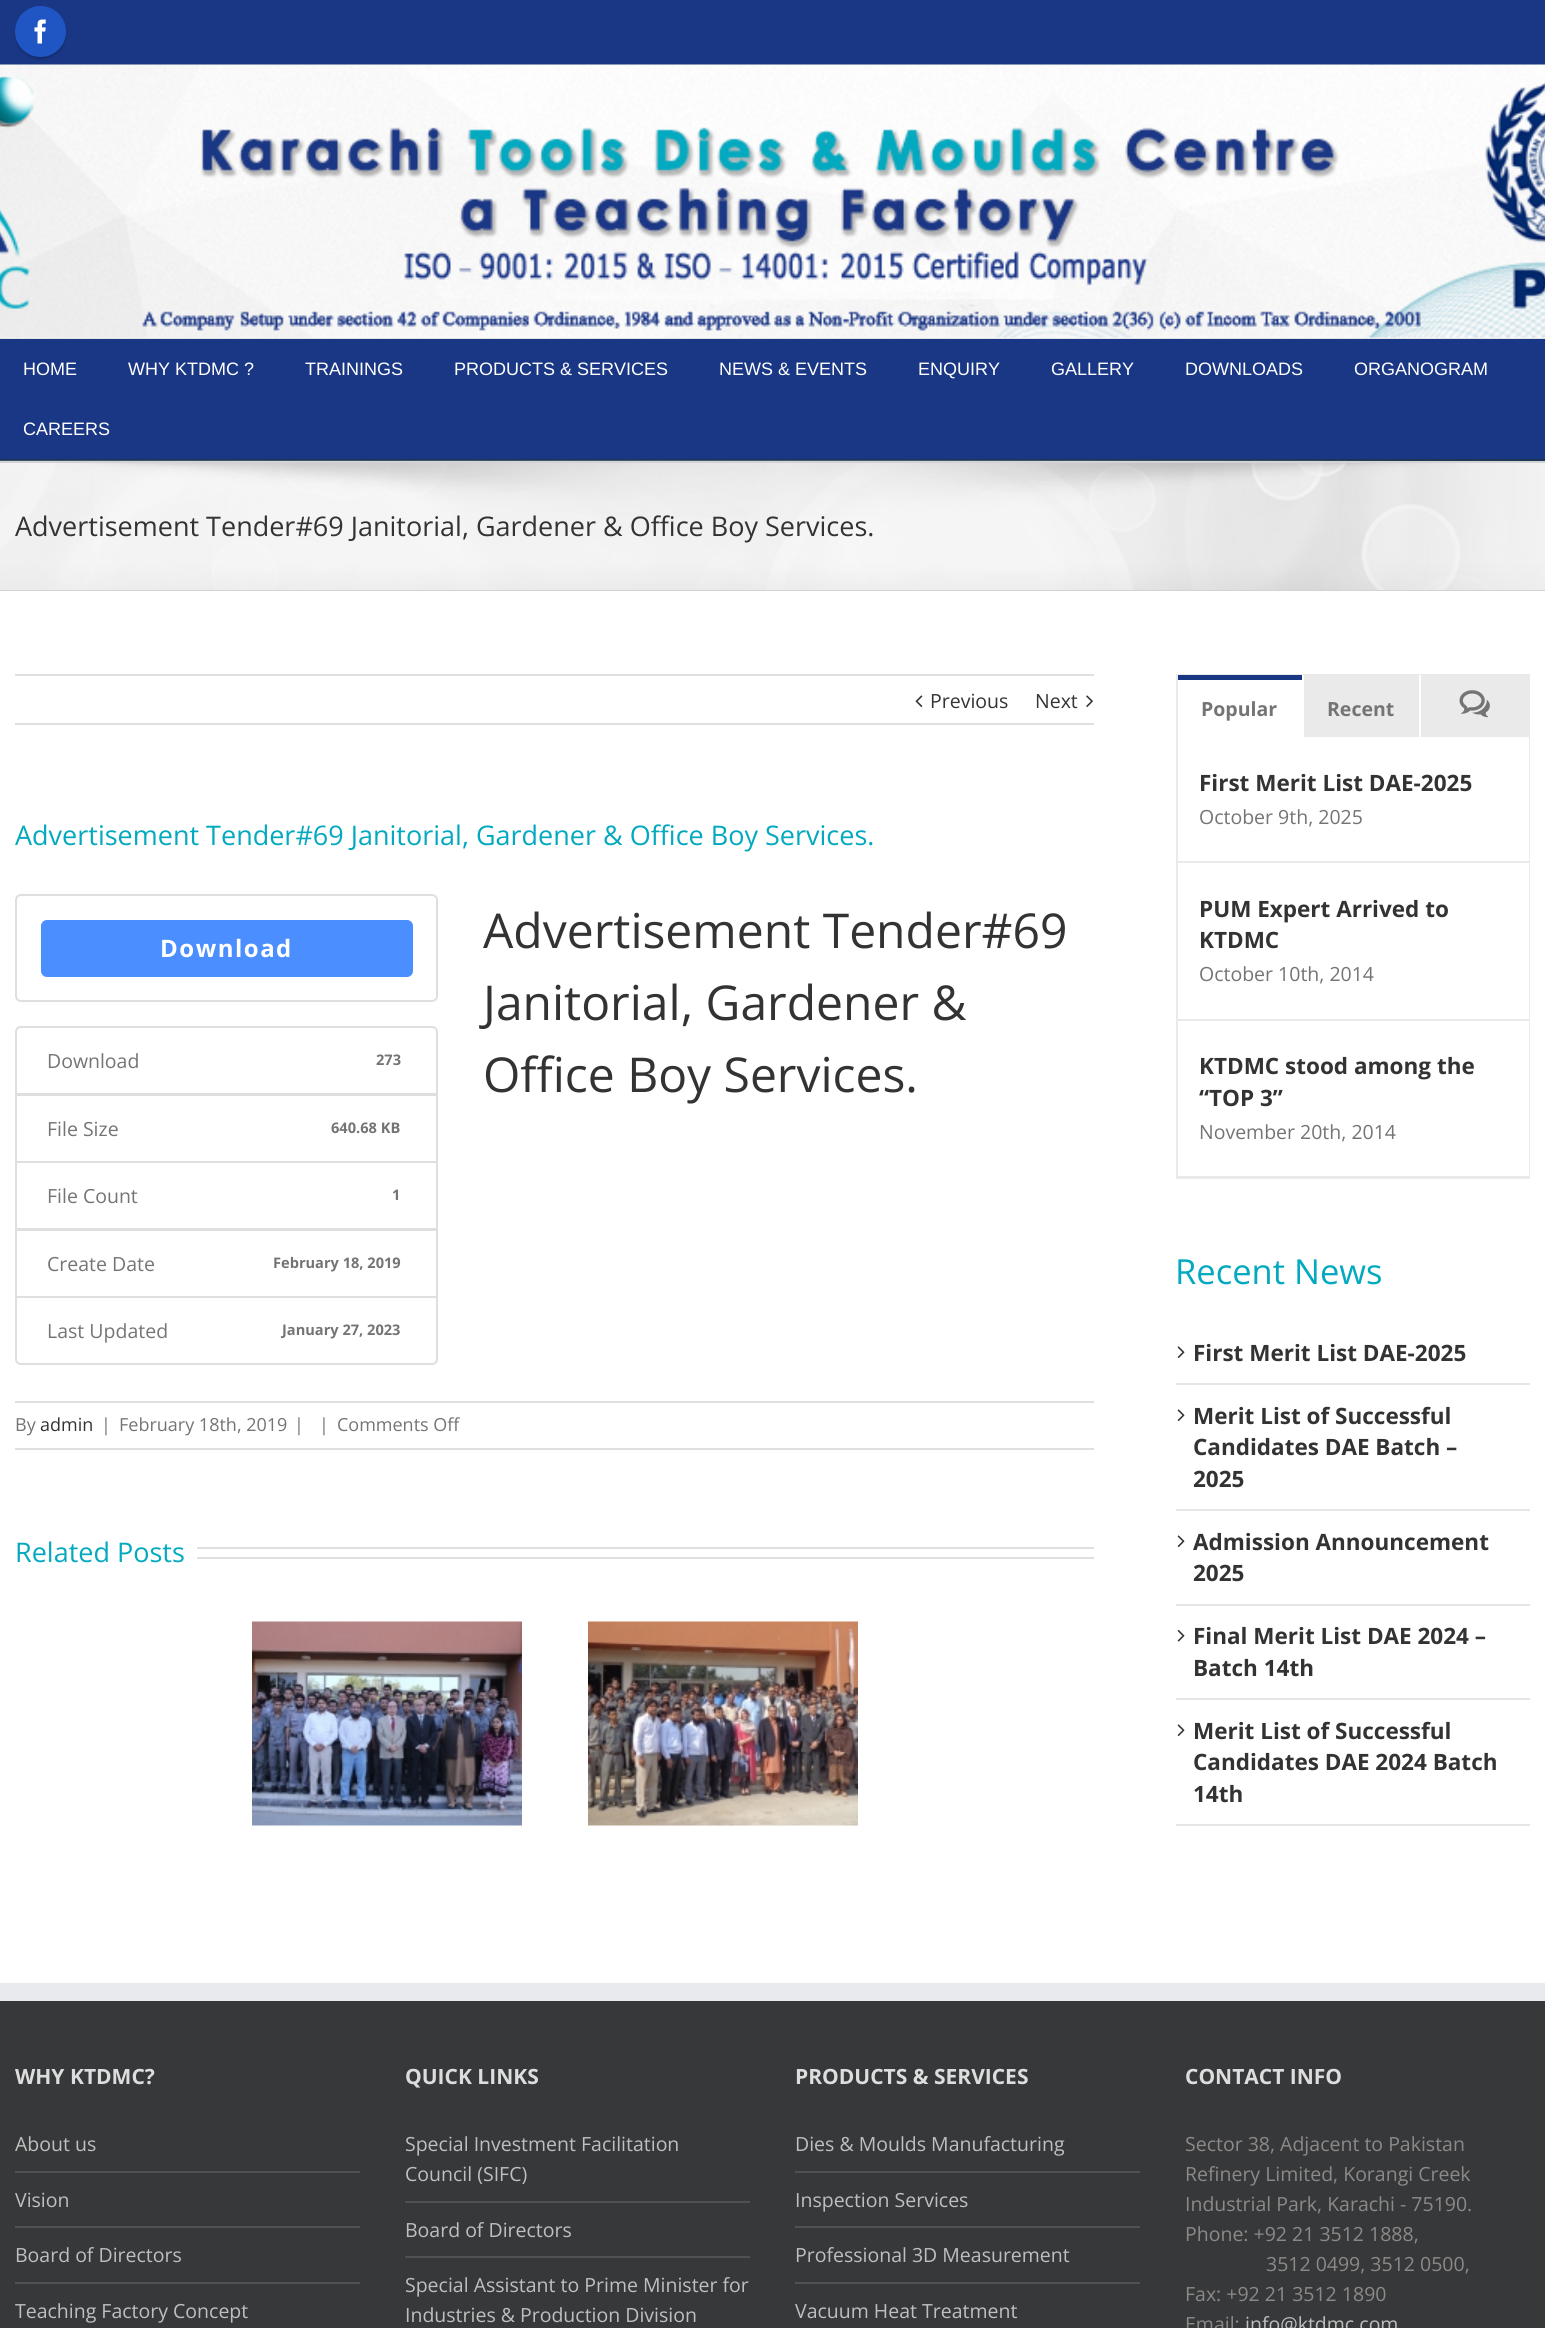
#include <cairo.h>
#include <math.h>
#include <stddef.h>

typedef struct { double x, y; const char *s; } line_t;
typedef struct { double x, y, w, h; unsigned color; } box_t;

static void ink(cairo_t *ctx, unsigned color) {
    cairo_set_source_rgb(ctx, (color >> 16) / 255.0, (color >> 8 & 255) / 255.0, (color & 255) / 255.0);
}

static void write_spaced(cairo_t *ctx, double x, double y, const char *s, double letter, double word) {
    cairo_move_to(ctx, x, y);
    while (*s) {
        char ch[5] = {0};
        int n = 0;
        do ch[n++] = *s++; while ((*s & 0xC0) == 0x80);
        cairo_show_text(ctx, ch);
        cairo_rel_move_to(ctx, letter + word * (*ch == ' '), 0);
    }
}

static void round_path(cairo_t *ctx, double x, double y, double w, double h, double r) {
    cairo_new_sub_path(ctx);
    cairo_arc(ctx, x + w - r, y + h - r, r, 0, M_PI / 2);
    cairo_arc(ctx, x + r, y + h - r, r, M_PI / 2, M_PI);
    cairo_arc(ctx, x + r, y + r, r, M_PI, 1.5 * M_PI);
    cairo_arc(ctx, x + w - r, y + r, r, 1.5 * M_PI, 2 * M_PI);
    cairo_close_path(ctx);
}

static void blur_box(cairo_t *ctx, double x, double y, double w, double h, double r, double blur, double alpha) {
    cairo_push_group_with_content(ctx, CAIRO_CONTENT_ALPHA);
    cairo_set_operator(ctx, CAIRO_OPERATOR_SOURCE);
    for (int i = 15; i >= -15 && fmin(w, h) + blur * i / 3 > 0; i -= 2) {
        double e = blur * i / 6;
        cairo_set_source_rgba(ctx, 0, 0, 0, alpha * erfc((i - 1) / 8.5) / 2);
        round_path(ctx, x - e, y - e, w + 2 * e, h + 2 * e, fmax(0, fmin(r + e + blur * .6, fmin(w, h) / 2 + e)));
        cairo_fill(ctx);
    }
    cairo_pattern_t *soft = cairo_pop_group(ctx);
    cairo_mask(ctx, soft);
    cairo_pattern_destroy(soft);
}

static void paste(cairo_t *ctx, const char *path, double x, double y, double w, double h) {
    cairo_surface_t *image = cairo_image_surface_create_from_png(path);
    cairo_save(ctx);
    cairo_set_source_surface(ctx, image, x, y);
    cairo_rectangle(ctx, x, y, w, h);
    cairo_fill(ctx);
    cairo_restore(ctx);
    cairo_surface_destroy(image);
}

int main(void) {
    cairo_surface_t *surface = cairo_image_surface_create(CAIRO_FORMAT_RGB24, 1545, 2328);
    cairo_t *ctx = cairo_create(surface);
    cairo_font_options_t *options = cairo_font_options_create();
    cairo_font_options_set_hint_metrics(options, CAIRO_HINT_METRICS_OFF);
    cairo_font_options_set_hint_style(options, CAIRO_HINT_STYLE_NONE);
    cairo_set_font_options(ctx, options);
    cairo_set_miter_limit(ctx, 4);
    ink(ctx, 0x1A3785);
    cairo_paint(ctx);
    ink(ctx, 0x000000);
    blur_box(ctx, 15, 8, 51, 51, 25.5, 1, 0.2);
    ink(ctx, 0x1F56C4);
    cairo_arc(ctx, 40.5, 31.5, 24.5, 0, 2 * M_PI);
    cairo_fill_preserve(ctx);
    cairo_stroke(ctx);
    paste(ctx, "media/1.png", 34, 19, 12, 25);
    paste(ctx, "media/2.png", 0, 64, 1545, 274);
    ink(ctx, 0xE1E1E1);
    cairo_rectangle(ctx, 0, 338, 1545, 1);
    cairo_fill(ctx);
    ink(ctx, 0x1C3552);
    cairo_rectangle(ctx, 0, 459, 1545, 2);
    cairo_fill(ctx);
    cairo_select_font_face(ctx, "Liberation Sans", CAIRO_FONT_SLANT_NORMAL, CAIRO_FONT_WEIGHT_NORMAL);
    cairo_set_font_size(ctx, 18);
    ink(ctx, 0xFFFFFF);
    {
        static const line_t items[] = {
            {23, 375, "HOME"},
            {128, 375, "WHY KTDMC ?"},
            {305, 375, "TRAININGS"},
            {454, 375, "PRODUCTS & SERVICES"},
            {719, 375, "NEWS & EVENTS"},
            {918, 375, "ENQUIRY"},
            {1051, 375, "GALLERY"},
            {1185, 375, "DOWNLOADS"},
            {1354, 375, "ORGANOGRAM"},
            {23, 435, "CAREERS"},
        };
        for (size_t i = 0; i < sizeof items / sizeof *items; i++) {
            cairo_move_to(ctx, items[i].x, items[i].y);
            cairo_show_text(ctx, items[i].s);
        }
    }
    ink(ctx, 0xF6F6F6);
    cairo_rectangle(ctx, 0, 463, 1545, 127);
    cairo_fill(ctx);
    paste(ctx, "media/3.png", 0, 460, 1545, 130);
    ink(ctx, 0xD2D3D4);
    cairo_rectangle(ctx, 0, 461, 1545, 2);
    cairo_fill(ctx);
    cairo_rectangle(ctx, 0, 590, 1545, 1);
    cairo_fill(ctx);
    cairo_select_font_face(ctx, "Open Sans", CAIRO_FONT_SLANT_NORMAL, CAIRO_FONT_WEIGHT_NORMAL);
    cairo_set_font_size(ctx, 27);
    ink(ctx, 0x333333);
    cairo_move_to(ctx, 15, 536);
    cairo_show_text(ctx, "Advertisement Tender#69 Janitorial, Gardener & Office Boy Services.");
    {
        static const box_t items[] = {
            {0, 591, 1545, 1392, 0xFFFFFF},
            {15, 674, 1079, 2, 0xE0DEDE},
            {15, 723, 1079, 2, 0xE0DEDE},
        };
        for (size_t i = 0; i < sizeof items / sizeof *items; i++) {
            ink(ctx, items[i].color);
            cairo_rectangle(ctx, items[i].x, items[i].y, items[i].w, items[i].h);
            cairo_fill(ctx);
        }
    }
    paste(ctx, "media/4.png", 915, 695, 8, 12);
    cairo_set_font_size(ctx, 19.5);
    ink(ctx, 0x333333);
    cairo_move_to(ctx, 930, 708);
    cairo_show_text(ctx, "Previous");
    cairo_move_to(ctx, 1035, 708);
    cairo_show_text(ctx, "Next");
    paste(ctx, "media/5.png", 1086, 695, 7, 12);
    cairo_set_font_size(ctx, 27);
    ink(ctx, 0x03A9BF);
    cairo_move_to(ctx, 15, 845);
    cairo_show_text(ctx, "Advertisement Tender#69 Janitorial, Gardener & Office Boy Services.");
    round_path(ctx, 16, 895, 421, 106, 5);
    ink(ctx, 0xDFDFDF);
    cairo_stroke(ctx);
    ink(ctx, 0x4A8EFF);
    round_path(ctx, 42, 921, 370, 55, 5);
    cairo_fill_preserve(ctx);
    cairo_stroke(ctx);
    cairo_select_font_face(ctx, "Open Sans", CAIRO_FONT_SLANT_NORMAL, CAIRO_FONT_WEIGHT_BOLD);
    cairo_set_font_size(ctx, 24);
    ink(ctx, 0xFFFFFF);
    write_spaced(ctx, 160, 957, "Download", 1.5, 0);
    cairo_new_path(ctx);
    cairo_move_to(ctx, 21, 1027);
    cairo_line_to(ctx, 432, 1027);
    cairo_curve_to(ctx, 435, 1027, 437, 1029, 437, 1032);
    cairo_line_to(ctx, 437, 1094);
    cairo_line_to(ctx, 16, 1094);
    cairo_line_to(ctx, 16, 1032);
    cairo_curve_to(ctx, 16, 1029, 18, 1027, 21, 1027);
    cairo_close_path(ctx);
    ink(ctx, 0xDFDFDF);
    cairo_stroke(ctx);
    cairo_select_font_face(ctx, "Open Sans", CAIRO_FONT_SLANT_NORMAL, CAIRO_FONT_WEIGHT_NORMAL);
    cairo_set_font_size(ctx, 19.5);
    ink(ctx, 0x747474);
    cairo_move_to(ctx, 47, 1068);
    cairo_show_text(ctx, "Download");
    cairo_select_font_face(ctx, "Open Sans", CAIRO_FONT_SLANT_NORMAL, CAIRO_FONT_WEIGHT_BOLD);
    cairo_set_font_size(ctx, 14.6);
    cairo_move_to(ctx, 376, 1065);
    cairo_show_text(ctx, "273");
    cairo_rectangle(ctx, 16, 1095, 421, 67);
    ink(ctx, 0xDFDFDF);
    cairo_stroke(ctx);
    cairo_select_font_face(ctx, "Open Sans", CAIRO_FONT_SLANT_NORMAL, CAIRO_FONT_WEIGHT_NORMAL);
    cairo_set_font_size(ctx, 19.5);
    ink(ctx, 0x747474);
    cairo_move_to(ctx, 47, 1136);
    cairo_show_text(ctx, "File Size");
    cairo_select_font_face(ctx, "Open Sans", CAIRO_FONT_SLANT_NORMAL, CAIRO_FONT_WEIGHT_BOLD);
    cairo_set_font_size(ctx, 14.6);
    cairo_move_to(ctx, 331, 1133);
    cairo_show_text(ctx, "640.68 KB");
    cairo_rectangle(ctx, 16, 1162, 421, 67);
    ink(ctx, 0xDFDFDF);
    cairo_stroke(ctx);
    cairo_select_font_face(ctx, "Open Sans", CAIRO_FONT_SLANT_NORMAL, CAIRO_FONT_WEIGHT_NORMAL);
    cairo_set_font_size(ctx, 19.5);
    ink(ctx, 0x747474);
    cairo_move_to(ctx, 47, 1203);
    cairo_show_text(ctx, "File Count");
    cairo_select_font_face(ctx, "Open Sans", CAIRO_FONT_SLANT_NORMAL, CAIRO_FONT_WEIGHT_BOLD);
    cairo_set_font_size(ctx, 14.6);
    cairo_move_to(ctx, 392, 1200);
    cairo_show_text(ctx, "1");
    cairo_rectangle(ctx, 16, 1230, 421, 67);
    ink(ctx, 0xDFDFDF);
    cairo_stroke(ctx);
    cairo_select_font_face(ctx, "Open Sans", CAIRO_FONT_SLANT_NORMAL, CAIRO_FONT_WEIGHT_NORMAL);
    cairo_set_font_size(ctx, 19.5);
    ink(ctx, 0x747474);
    cairo_move_to(ctx, 47, 1271);
    cairo_show_text(ctx, "Create Date");
    cairo_select_font_face(ctx, "Open Sans", CAIRO_FONT_SLANT_NORMAL, CAIRO_FONT_WEIGHT_BOLD);
    cairo_set_font_size(ctx, 14.6);
    cairo_move_to(ctx, 273, 1268);
    cairo_show_text(ctx, "February 18, 2019");
    ink(ctx, 0xFFFFFF);
    cairo_new_path(ctx);
    cairo_move_to(ctx, 16, 1297);
    cairo_line_to(ctx, 437, 1297);
    cairo_line_to(ctx, 437, 1359);
    cairo_curve_to(ctx, 437, 1362, 435, 1364, 432, 1364);
    cairo_line_to(ctx, 21, 1364);
    cairo_curve_to(ctx, 18, 1364, 16, 1362, 16, 1359);
    cairo_close_path(ctx);
    cairo_fill_preserve(ctx);
    ink(ctx, 0xDFDFDF);
    cairo_stroke(ctx);
    cairo_select_font_face(ctx, "Open Sans", CAIRO_FONT_SLANT_NORMAL, CAIRO_FONT_WEIGHT_NORMAL);
    cairo_set_font_size(ctx, 19.5);
    ink(ctx, 0x747474);
    cairo_move_to(ctx, 47, 1338);
    cairo_show_text(ctx, "Last Updated");
    cairo_select_font_face(ctx, "Open Sans", CAIRO_FONT_SLANT_NORMAL, CAIRO_FONT_WEIGHT_BOLD);
    cairo_set_font_size(ctx, 14.6);
    cairo_move_to(ctx, 282, 1335);
    cairo_show_text(ctx, "January 27, 2023");
    cairo_select_font_face(ctx, "Open Sans", CAIRO_FONT_SLANT_NORMAL, CAIRO_FONT_WEIGHT_NORMAL);
    cairo_set_font_size(ctx, 48);
    ink(ctx, 0x333333);
    {
        static const line_t items[] = {
            {483, 948, "Advertisement Tender#69"},
            {483, 1020, "Janitorial, Gardener &"},
            {483, 1092, "Office Boy Services."},
        };
        for (size_t i = 0; i < sizeof items / sizeof *items; i++) {
            cairo_move_to(ctx, items[i].x, items[i].y);
            cairo_show_text(ctx, items[i].s);
        }
    }
    ink(ctx, 0xE0DEDE);
    cairo_rectangle(ctx, 15, 1401, 1079, 2);
    cairo_fill(ctx);
    cairo_rectangle(ctx, 15, 1448, 1079, 2);
    cairo_fill(ctx);
    cairo_set_font_size(ctx, 18);
    ink(ctx, 0x747474);
    cairo_move_to(ctx, 15, 1431);
    cairo_show_text(ctx, "By");
    ink(ctx, 0x333333);
    cairo_move_to(ctx, 40, 1431);
    cairo_show_text(ctx, "admin");
    ink(ctx, 0x747474);
    {
        static const line_t items[] = {
            {101, 1431, "|"},
            {119, 1431, "February 18th, 2019"},
            {294, 1431, "|"},
            {319, 1431, "|"},
            {337, 1431, "Comments Off"},
        };
        for (size_t i = 0; i < sizeof items / sizeof *items; i++) {
            cairo_move_to(ctx, items[i].x, items[i].y);
            cairo_show_text(ctx, items[i].s);
        }
    }
    cairo_set_font_size(ctx, 27);
    ink(ctx, 0x03A9BF);
    cairo_move_to(ctx, 15, 1562);
    cairo_show_text(ctx, "Related Posts");
    ink(ctx, 0xE0DEDE);
    cairo_rectangle(ctx, 197, 1547, 897, 2);
    cairo_fill(ctx);
    cairo_rectangle(ctx, 197, 1557, 897, 2);
    cairo_fill(ctx);
    paste(ctx, "media/6.png", 252, 1621, 270, 205);
    paste(ctx, "media/7.png", 588, 1621, 270, 205);
    cairo_rectangle(ctx, 1177, 675, 352, 503);
    ink(ctx, 0xEBEAEA);
    cairo_stroke(ctx);
    ink(ctx, 0xFFFFFF);
    cairo_rectangle(ctx, 1302, 675, 2, 1);
    cairo_fill(ctx);
    ink(ctx, 0x1A3785);
    cairo_rectangle(ctx, 1178, 675, 124, 5);
    cairo_fill(ctx);
    cairo_select_font_face(ctx, "Open Sans", CAIRO_FONT_SLANT_NORMAL, CAIRO_FONT_WEIGHT_BOLD);
    cairo_set_font_size(ctx, 19.5);
    ink(ctx, 0x747474);
    cairo_move_to(ctx, 1201, 716);
    cairo_show_text(ctx, "Popular");
    ink(ctx, 0xFFFFFF);
    cairo_rectangle(ctx, 1419, 675, 2, 1);
    cairo_fill(ctx);
    ink(ctx, 0xEBEAEA);
    cairo_rectangle(ctx, 1304, 676, 115, 61);
    cairo_fill(ctx);
    ink(ctx, 0x747474);
    cairo_move_to(ctx, 1327, 716);
    cairo_show_text(ctx, "Recent");
    ink(ctx, 0xEBEAEA);
    cairo_rectangle(ctx, 1421, 676, 107, 61);
    cairo_fill(ctx);
    paste(ctx, "media/8.png", 1459, 690, 31, 28);
    ink(ctx, 0xFFFFFF);
    cairo_rectangle(ctx, 1528, 737, 1, 439);
    cairo_fill(ctx);
    ink(ctx, 0xEBEAEA);
    cairo_rectangle(ctx, 1178, 861, 351, 2);
    cairo_fill(ctx);
    cairo_set_font_size(ctx, 22.5);
    ink(ctx, 0x333333);
    cairo_move_to(ctx, 1199, 791);
    cairo_show_text(ctx, "First Merit List DAE-2025");
    cairo_select_font_face(ctx, "Open Sans", CAIRO_FONT_SLANT_NORMAL, CAIRO_FONT_WEIGHT_NORMAL);
    cairo_set_font_size(ctx, 19.5);
    ink(ctx, 0x747474);
    cairo_move_to(ctx, 1199, 824);
    cairo_show_text(ctx, "October 9th, 2025");
    ink(ctx, 0xEBEAEA);
    cairo_rectangle(ctx, 1178, 1019, 351, 2);
    cairo_fill(ctx);
    cairo_select_font_face(ctx, "Open Sans", CAIRO_FONT_SLANT_NORMAL, CAIRO_FONT_WEIGHT_BOLD);
    cairo_set_font_size(ctx, 22.5);
    ink(ctx, 0x333333);
    cairo_move_to(ctx, 1199, 917);
    cairo_show_text(ctx, "PUM Expert Arrived to");
    cairo_move_to(ctx, 1199, 948);
    cairo_show_text(ctx, "KTDMC");
    cairo_select_font_face(ctx, "Open Sans", CAIRO_FONT_SLANT_NORMAL, CAIRO_FONT_WEIGHT_NORMAL);
    cairo_set_font_size(ctx, 19.5);
    ink(ctx, 0x747474);
    cairo_move_to(ctx, 1199, 981);
    cairo_show_text(ctx, "October 10th, 2014");
    ink(ctx, 0xEBEAEA);
    cairo_rectangle(ctx, 1178, 1176, 351, 1);
    cairo_fill(ctx);
    cairo_select_font_face(ctx, "Open Sans", CAIRO_FONT_SLANT_NORMAL, CAIRO_FONT_WEIGHT_BOLD);
    cairo_set_font_size(ctx, 22.5);
    ink(ctx, 0x333333);
    cairo_move_to(ctx, 1199, 1074);
    cairo_show_text(ctx, "KTDMC stood among the");
    cairo_move_to(ctx, 1199, 1106);
    cairo_show_text(ctx, "“TOP 3”");
    cairo_select_font_face(ctx, "Open Sans", CAIRO_FONT_SLANT_NORMAL, CAIRO_FONT_WEIGHT_NORMAL);
    cairo_set_font_size(ctx, 19.5);
    ink(ctx, 0x747474);
    cairo_move_to(ctx, 1199, 1139);
    cairo_show_text(ctx, "November 20th, 2014");
    cairo_set_font_size(ctx, 34.5);
    ink(ctx, 0x03A9BF);
    cairo_move_to(ctx, 1175, 1284);
    cairo_show_text(ctx, "Recent News");
    ink(ctx, 0xE7E6E6);
    cairo_rectangle(ctx, 1176, 1383, 354, 2);
    cairo_fill(ctx);
    paste(ctx, "media/9.png", 1177, 1346, 8, 12);
    cairo_select_font_face(ctx, "Open Sans", CAIRO_FONT_SLANT_NORMAL, CAIRO_FONT_WEIGHT_BOLD);
    cairo_set_font_size(ctx, 22.5);
    ink(ctx, 0x333333);
    cairo_move_to(ctx, 1193, 1361);
    cairo_show_text(ctx, "First Merit List DAE-2025");
    ink(ctx, 0xE7E6E6);
    cairo_rectangle(ctx, 1176, 1509, 354, 2);
    cairo_fill(ctx);
    paste(ctx, "media/9.png", 1177, 1409, 8, 12);
    ink(ctx, 0x333333);
    {
        static const line_t items[] = {
            {1193, 1424, "Merit List of Successful"},
            {1193, 1455, "Candidates DAE Batch –"},
            {1193, 1487, "2025"},
        };
        for (size_t i = 0; i < sizeof items / sizeof *items; i++) {
            cairo_move_to(ctx, items[i].x, items[i].y);
            cairo_show_text(ctx, items[i].s);
        }
    }
    ink(ctx, 0xE7E6E6);
    cairo_rectangle(ctx, 1176, 1604, 354, 2);
    cairo_fill(ctx);
    paste(ctx, "media/9.png", 1177, 1535, 8, 12);
    ink(ctx, 0x333333);
    cairo_move_to(ctx, 1193, 1550);
    cairo_show_text(ctx, "Admission Announcement");
    cairo_move_to(ctx, 1193, 1581);
    cairo_show_text(ctx, "2025");
    ink(ctx, 0xE7E6E6);
    cairo_rectangle(ctx, 1176, 1698, 354, 2);
    cairo_fill(ctx);
    paste(ctx, "media/10.png", 1177, 1629, 8, 13);
    ink(ctx, 0x333333);
    cairo_move_to(ctx, 1193, 1644);
    cairo_show_text(ctx, "Final Merit List DAE 2024 –");
    cairo_move_to(ctx, 1193, 1676);
    cairo_show_text(ctx, "Batch 14th");
    ink(ctx, 0xE7E6E6);
    cairo_rectangle(ctx, 1176, 1824, 354, 2);
    cairo_fill(ctx);
    paste(ctx, "media/9.png", 1177, 1724, 8, 12);
    ink(ctx, 0x333333);
    {
        static const line_t items[] = {
            {1193, 1739, "Merit List of Successful"},
            {1193, 1770, "Candidates DAE 2024 Batch"},
            {1193, 1802, "14th"},
        };
        for (size_t i = 0; i < sizeof items / sizeof *items; i++) {
            cairo_move_to(ctx, items[i].x, items[i].y);
            cairo_show_text(ctx, items[i].s);
        }
    }
    ink(ctx, 0x363839);
    cairo_rectangle(ctx, 0, 2001, 1545, 327);
    cairo_fill(ctx);
    ink(ctx, 0xE9EAEE);
    cairo_rectangle(ctx, 0, 1983, 1545, 18);
    cairo_fill(ctx);
    cairo_set_font_size(ctx, 21);
    ink(ctx, 0xDDDDDD);
    cairo_move_to(ctx, 15, 2084);
    cairo_show_text(ctx, "WHY KTDMC?");
    ink(ctx, 0x505152);
    cairo_rectangle(ctx, 15, 2171, 345, 2);
    cairo_fill(ctx);
    cairo_select_font_face(ctx, "Open Sans", CAIRO_FONT_SLANT_NORMAL, CAIRO_FONT_WEIGHT_NORMAL);
    cairo_set_font_size(ctx, 19.5);
    ink(ctx, 0xBFBFBF);
    cairo_move_to(ctx, 15, 2151);
    cairo_show_text(ctx, "About us");
    ink(ctx, 0x505152);
    cairo_rectangle(ctx, 15, 2226, 345, 2);
    cairo_fill(ctx);
    ink(ctx, 0xBFBFBF);
    cairo_move_to(ctx, 15, 2207);
    cairo_show_text(ctx, "Vision");
    ink(ctx, 0x505152);
    cairo_rectangle(ctx, 15, 2282, 345, 2);
    cairo_fill(ctx);
    ink(ctx, 0xBFBFBF);
    cairo_move_to(ctx, 15, 2262);
    cairo_show_text(ctx, "Board of Directors");
    cairo_move_to(ctx, 15, 2318);
    cairo_show_text(ctx, "Teaching Factory Concept");
    cairo_select_font_face(ctx, "Open Sans", CAIRO_FONT_SLANT_NORMAL, CAIRO_FONT_WEIGHT_BOLD);
    cairo_set_font_size(ctx, 21);
    ink(ctx, 0xDDDDDD);
    cairo_move_to(ctx, 405, 2084);
    cairo_show_text(ctx, "QUICK LINKS");
    ink(ctx, 0x505152);
    cairo_rectangle(ctx, 405, 2201, 345, 2);
    cairo_fill(ctx);
    cairo_select_font_face(ctx, "Open Sans", CAIRO_FONT_SLANT_NORMAL, CAIRO_FONT_WEIGHT_NORMAL);
    cairo_set_font_size(ctx, 19.5);
    ink(ctx, 0xBFBFBF);
    cairo_move_to(ctx, 405, 2151);
    cairo_show_text(ctx, "Special Investment Facilitation");
    cairo_move_to(ctx, 405, 2181);
    cairo_show_text(ctx, "Council (SIFC)");
    ink(ctx, 0x505152);
    cairo_rectangle(ctx, 405, 2256, 345, 2);
    cairo_fill(ctx);
    ink(ctx, 0xBFBFBF);
    {
        static const line_t items[] = {
            {405, 2237, "Board of Directors"},
            {405, 2292, "Special Assistant to Prime Minister for"},
            {405, 2322, "Industries & Production Division"},
        };
        for (size_t i = 0; i < sizeof items / sizeof *items; i++) {
            cairo_move_to(ctx, items[i].x, items[i].y);
            cairo_show_text(ctx, items[i].s);
        }
    }
    cairo_select_font_face(ctx, "Open Sans", CAIRO_FONT_SLANT_NORMAL, CAIRO_FONT_WEIGHT_BOLD);
    cairo_set_font_size(ctx, 21);
    ink(ctx, 0xDDDDDD);
    cairo_move_to(ctx, 795, 2084);
    cairo_show_text(ctx, "PRODUCTS & SERVICES");
    ink(ctx, 0x505152);
    cairo_rectangle(ctx, 795, 2171, 345, 2);
    cairo_fill(ctx);
    cairo_select_font_face(ctx, "Open Sans", CAIRO_FONT_SLANT_NORMAL, CAIRO_FONT_WEIGHT_NORMAL);
    cairo_set_font_size(ctx, 19.5);
    ink(ctx, 0xBFBFBF);
    cairo_move_to(ctx, 795, 2151);
    cairo_show_text(ctx, "Dies & Moulds Manufacturing");
    ink(ctx, 0x505152);
    cairo_rectangle(ctx, 795, 2226, 345, 2);
    cairo_fill(ctx);
    ink(ctx, 0xBFBFBF);
    cairo_move_to(ctx, 795, 2207);
    cairo_show_text(ctx, "Inspection Services");
    ink(ctx, 0x505152);
    cairo_rectangle(ctx, 795, 2282, 345, 2);
    cairo_fill(ctx);
    ink(ctx, 0xBFBFBF);
    cairo_move_to(ctx, 795, 2262);
    cairo_show_text(ctx, "Professional 3D Measurement");
    cairo_move_to(ctx, 795, 2318);
    cairo_show_text(ctx, "Vacuum Heat Treatment");
    cairo_select_font_face(ctx, "Open Sans", CAIRO_FONT_SLANT_NORMAL, CAIRO_FONT_WEIGHT_BOLD);
    cairo_set_font_size(ctx, 21);
    ink(ctx, 0xDDDDDD);
    cairo_move_to(ctx, 1185, 2084);
    cairo_show_text(ctx, "CONTACT INFO");
    cairo_select_font_face(ctx, "Open Sans", CAIRO_FONT_SLANT_NORMAL, CAIRO_FONT_WEIGHT_NORMAL);
    cairo_set_font_size(ctx, 19.5);
    ink(ctx, 0x8C8989);
    {
        static const line_t items[] = {
            {1185, 2151, "Sector 38, Adjacent to Pakistan"},
            {1185, 2181, "Refinery Limited, Korangi Creek"},
            {1185, 2211, "Industrial Park, Karachi - 75190."},
            {1185, 2241, "Phone: +92 21 3512 1888,"},
            {1266, 2271, "3512 0499, 3512 0500,"},
            {1185, 2301, "Fax: +92 21 3512 1890"},
            {1185, 2331, "Email:"},
        };
        for (size_t i = 0; i < sizeof items / sizeof *items; i++) {
            cairo_move_to(ctx, items[i].x, items[i].y);
            cairo_show_text(ctx, items[i].s);
        }
    }
    ink(ctx, 0xBFBFBF);
    cairo_move_to(ctx, 1245, 2331);
    cairo_show_text(ctx, "info@ktdmc.com");
    cairo_surface_write_to_png(surface, "image.png");
    cairo_font_options_destroy(options);
    cairo_destroy(ctx);
    cairo_surface_destroy(surface);
    return 0;
}
